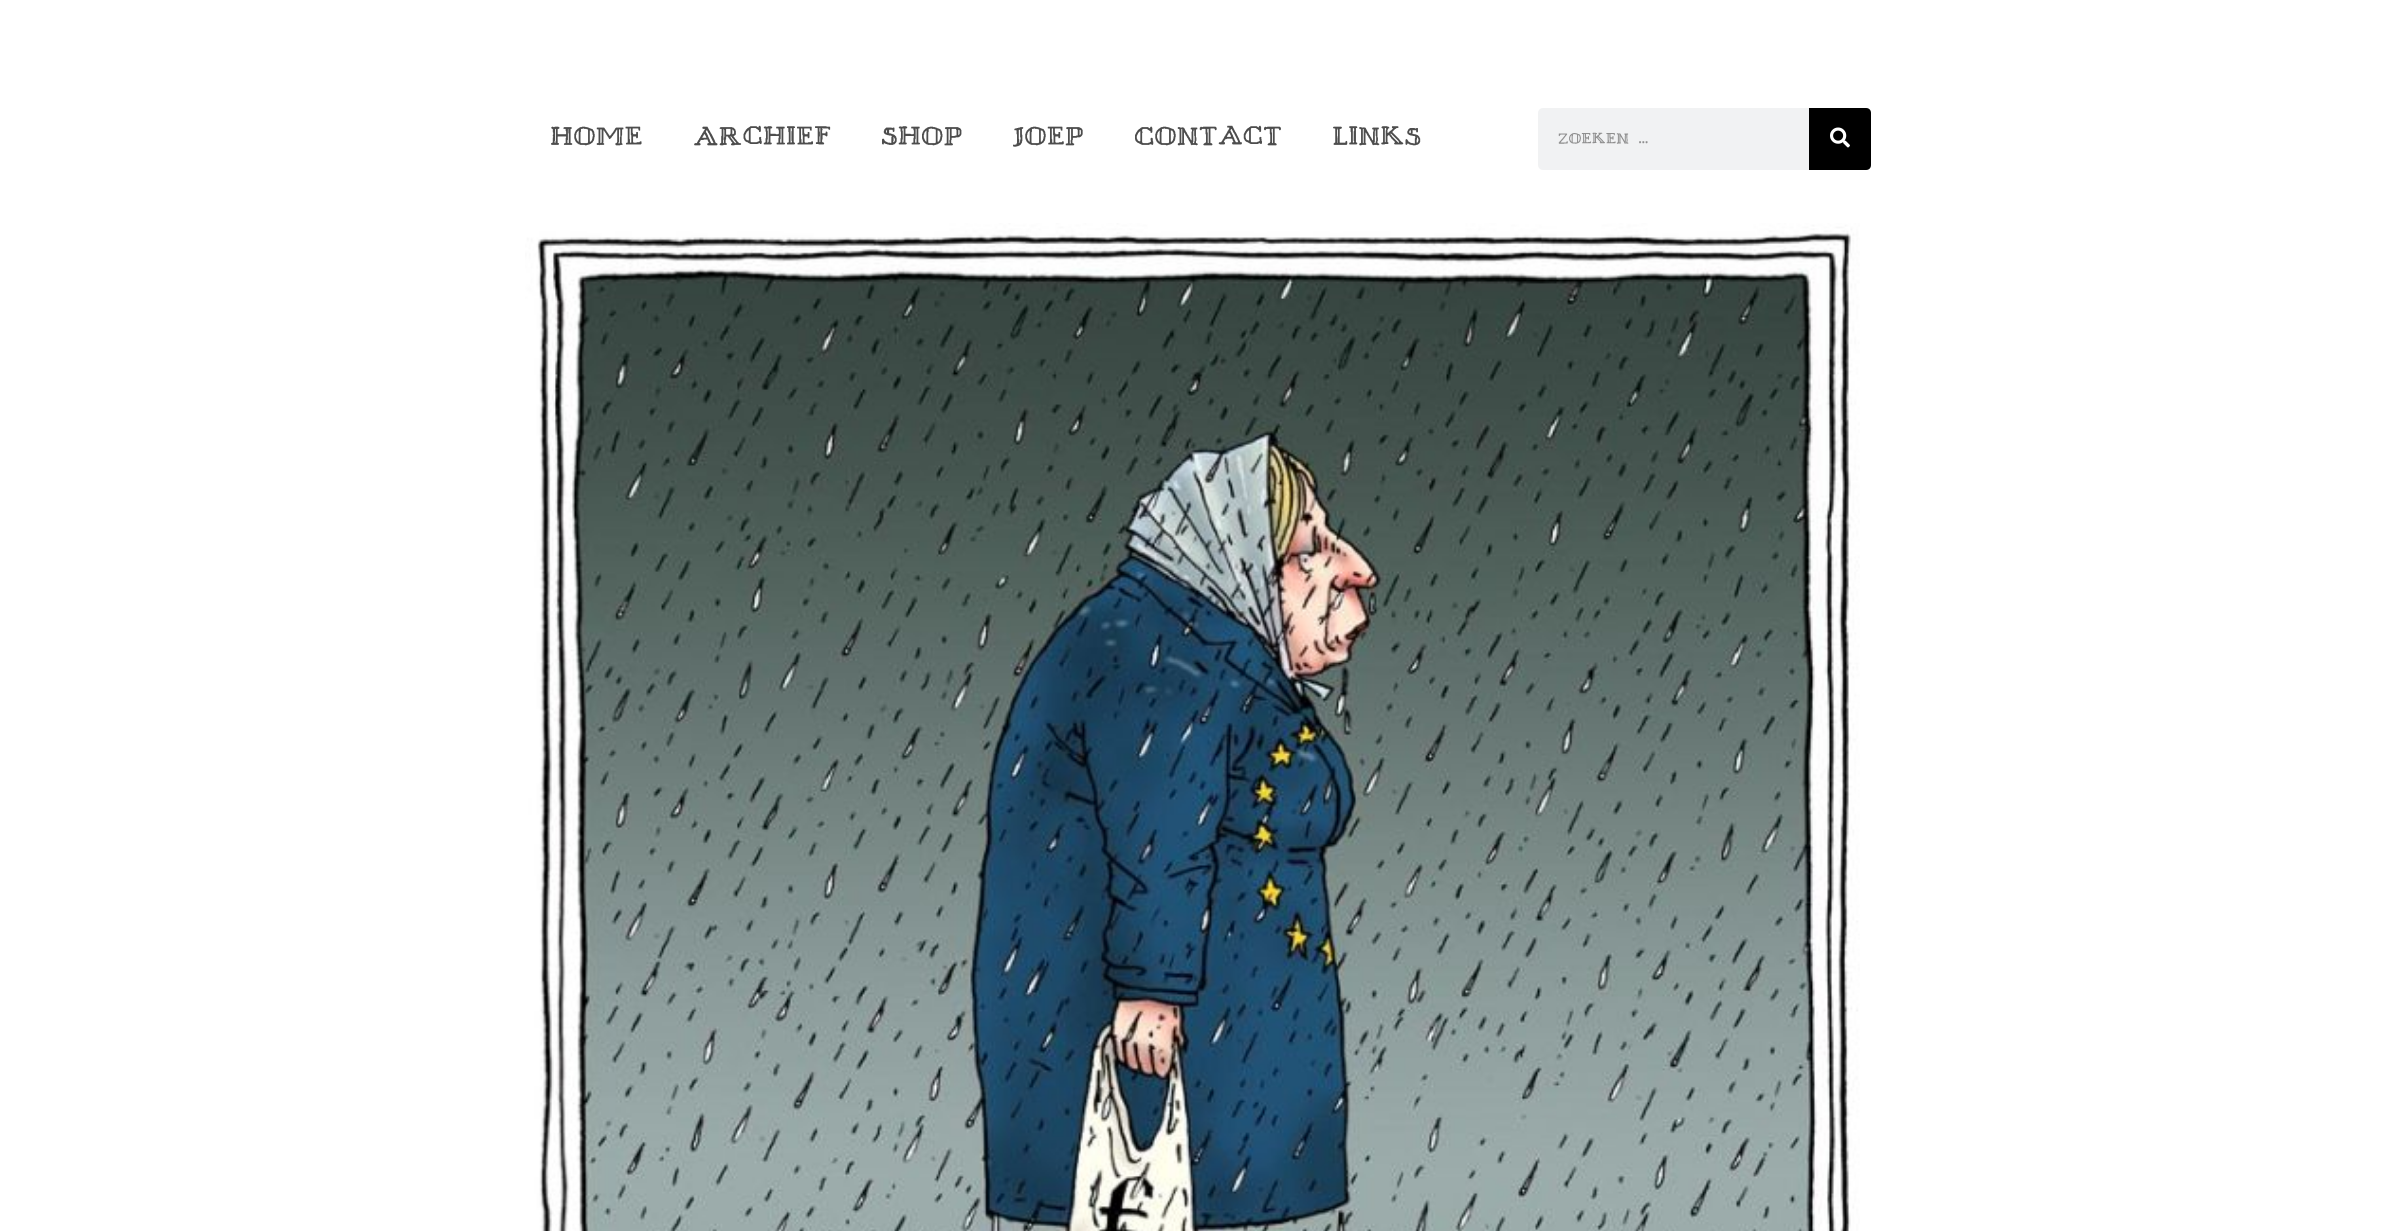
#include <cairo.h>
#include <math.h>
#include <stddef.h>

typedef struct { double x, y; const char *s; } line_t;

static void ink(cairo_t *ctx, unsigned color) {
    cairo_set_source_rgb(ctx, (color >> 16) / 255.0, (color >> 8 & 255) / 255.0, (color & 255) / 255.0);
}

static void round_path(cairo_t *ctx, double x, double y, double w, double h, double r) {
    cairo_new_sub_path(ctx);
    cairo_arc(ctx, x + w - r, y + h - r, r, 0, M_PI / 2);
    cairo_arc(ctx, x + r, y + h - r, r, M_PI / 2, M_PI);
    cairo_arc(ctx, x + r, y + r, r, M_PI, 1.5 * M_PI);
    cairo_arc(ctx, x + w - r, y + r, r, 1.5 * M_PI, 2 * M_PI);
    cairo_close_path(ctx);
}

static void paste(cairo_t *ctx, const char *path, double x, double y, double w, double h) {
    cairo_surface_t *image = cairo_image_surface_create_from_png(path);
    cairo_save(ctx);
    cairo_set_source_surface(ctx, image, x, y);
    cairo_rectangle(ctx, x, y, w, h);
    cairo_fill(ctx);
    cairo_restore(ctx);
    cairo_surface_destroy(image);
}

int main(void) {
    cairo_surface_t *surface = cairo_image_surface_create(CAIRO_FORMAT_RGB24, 2400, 1231);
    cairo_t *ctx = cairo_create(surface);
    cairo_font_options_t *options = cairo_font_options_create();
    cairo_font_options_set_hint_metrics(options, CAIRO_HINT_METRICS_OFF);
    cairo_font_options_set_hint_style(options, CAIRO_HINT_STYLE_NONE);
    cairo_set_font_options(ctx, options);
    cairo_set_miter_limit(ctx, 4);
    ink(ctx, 0xFFFFFF);
    cairo_paint(ctx);
    cairo_select_font_face(ctx, "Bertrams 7", CAIRO_FONT_SLANT_NORMAL, CAIRO_FONT_WEIGHT_NORMAL);
    cairo_set_font_size(ctx, 32.5);
    ink(ctx, 0x4D4D4D);
    {
        static const line_t items[] = {
            {550, 144, "Home"},
            {693, 144, "Archief"},
            {881, 144, "Shop"},
            {1012, 144, "Joep"},
            {1134, 144, "Contact"},
            {1332, 144, "Links"},
        };
        for (size_t i = 0; i < sizeof items / sizeof *items; i++) {
            cairo_move_to(ctx, items[i].x, items[i].y);
            cairo_show_text(ctx, items[i].s);
        }
    }
    ink(ctx, 0xF1F2F3);
    round_path(ctx, 1538, 108, 333, 62, 5);
    cairo_fill(ctx);
    cairo_set_font_size(ctx, 18.75);
    ink(ctx, 0x8F8F8F);
    cairo_move_to(ctx, 1558, 143);
    cairo_show_text(ctx, "Zoeken ...");
    ink(ctx, 0x000000);
    cairo_new_path(ctx);
    cairo_move_to(ctx, 1809, 108);
    cairo_line_to(ctx, 1866, 108);
    cairo_curve_to(ctx, 1869, 108, 1871, 110, 1871, 113);
    cairo_line_to(ctx, 1871, 165);
    cairo_curve_to(ctx, 1871, 168, 1869, 170, 1866, 170);
    cairo_line_to(ctx, 1809, 170);
    cairo_close_path(ctx);
    cairo_fill(ctx);
    paste(ctx, "media/1.png", 1830, 127, 20, 21);
    paste(ctx, "media/2.png", 525, 223, 1335, 1008);
    cairo_surface_write_to_png(surface, "image.png");
    cairo_font_options_destroy(options);
    cairo_destroy(ctx);
    cairo_surface_destroy(surface);
    return 0;
}
